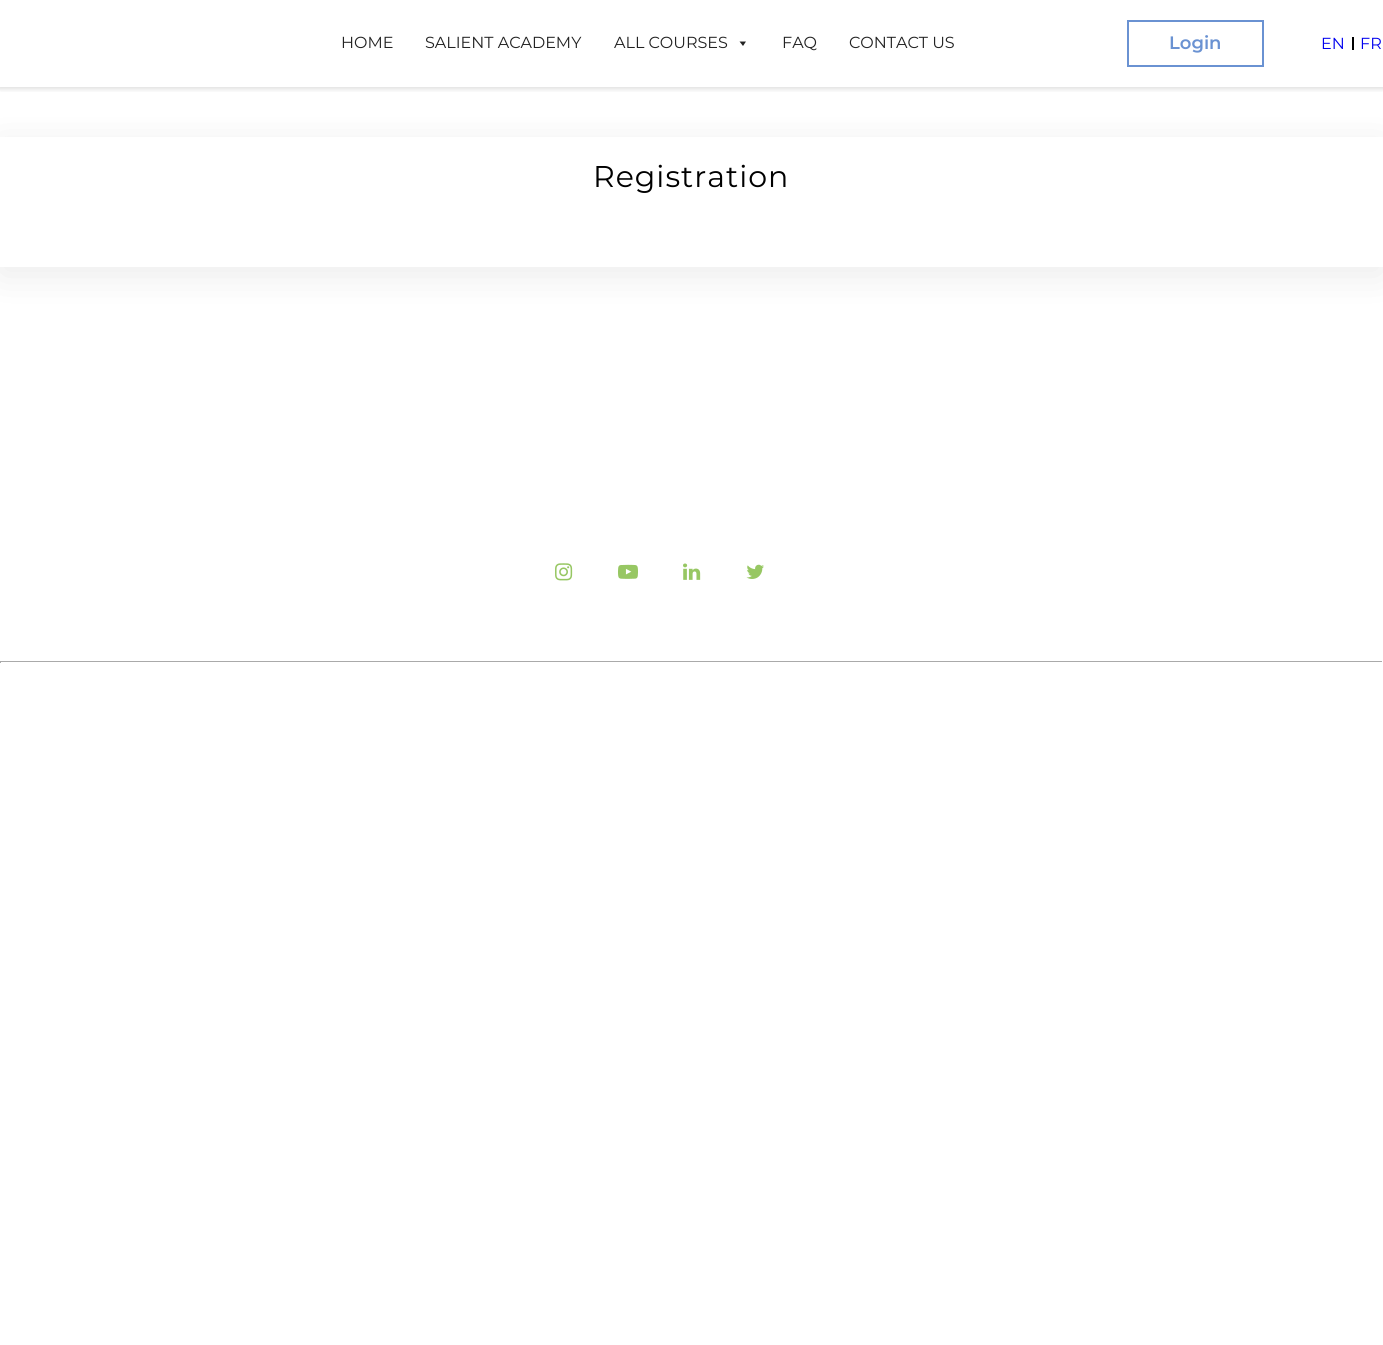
#include <cairo.h>
#include <math.h>
#include <stddef.h>

typedef struct { double x, y; const char *s; } line_t;
typedef struct { double x, y, w, h; unsigned color; } box_t;

static void ink(cairo_t *ctx, unsigned color) {
    cairo_set_source_rgb(ctx, (color >> 16) / 255.0, (color >> 8 & 255) / 255.0, (color & 255) / 255.0);
}

static void write_spaced(cairo_t *ctx, double x, double y, const char *s, double letter, double word) {
    cairo_move_to(ctx, x, y);
    while (*s) {
        char ch[5] = {0};
        int n = 0;
        do ch[n++] = *s++; while ((*s & 0xC0) == 0x80);
        cairo_show_text(ctx, ch);
        cairo_rel_move_to(ctx, letter + word * (*ch == ' '), 0);
    }
}

static void round_path(cairo_t *ctx, double x, double y, double w, double h, double r) {
    cairo_new_sub_path(ctx);
    cairo_arc(ctx, x + w - r, y + h - r, r, 0, M_PI / 2);
    cairo_arc(ctx, x + r, y + h - r, r, M_PI / 2, M_PI);
    cairo_arc(ctx, x + r, y + r, r, M_PI, 1.5 * M_PI);
    cairo_arc(ctx, x + w - r, y + r, r, 1.5 * M_PI, 2 * M_PI);
    cairo_close_path(ctx);
}

static void blur_box(cairo_t *ctx, double x, double y, double w, double h, double r, double blur, double alpha) {
    cairo_push_group_with_content(ctx, CAIRO_CONTENT_ALPHA);
    cairo_set_operator(ctx, CAIRO_OPERATOR_SOURCE);
    for (int i = 15; i >= -15 && fmin(w, h) + blur * i / 3 > 0; i -= 2) {
        double e = blur * i / 6;
        cairo_set_source_rgba(ctx, 0, 0, 0, alpha * erfc((i - 1) / 8.5) / 2);
        round_path(ctx, x - e, y - e, w + 2 * e, h + 2 * e, fmax(0, fmin(r + e + blur * .6, fmin(w, h) / 2 + e)));
        cairo_fill(ctx);
    }
    cairo_pattern_t *soft = cairo_pop_group(ctx);
    cairo_mask(ctx, soft);
    cairo_pattern_destroy(soft);
}

static void paste(cairo_t *ctx, const char *path, double x, double y, double w, double h) {
    cairo_surface_t *image = cairo_image_surface_create_from_png(path);
    cairo_save(ctx);
    cairo_set_source_surface(ctx, image, x, y);
    cairo_rectangle(ctx, x, y, w, h);
    cairo_fill(ctx);
    cairo_restore(ctx);
    cairo_surface_destroy(image);
}

int main(void) {
    cairo_surface_t *surface = cairo_image_surface_create(CAIRO_FORMAT_RGB24, 1383, 1345);
    cairo_t *ctx = cairo_create(surface);
    cairo_font_options_t *options = cairo_font_options_create();
    cairo_font_options_set_hint_metrics(options, CAIRO_HINT_METRICS_OFF);
    cairo_font_options_set_hint_style(options, CAIRO_HINT_STYLE_NONE);
    cairo_set_font_options(ctx, options);
    cairo_set_miter_limit(ctx, 4);
    ink(ctx, 0xFFFFFF);
    cairo_paint(ctx);
    cairo_save(ctx);
    cairo_rectangle(ctx, 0, 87, 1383, 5);
    cairo_clip(ctx);
    ink(ctx, 0x211E1C);
    blur_box(ctx, -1, 0, 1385, 89, 0, 2.5, 0.15);
    cairo_restore(ctx);
    cairo_select_font_face(ctx, "Montserrat", CAIRO_FONT_SLANT_NORMAL, CAIRO_FONT_WEIGHT_NORMAL);
    cairo_set_font_size(ctx, 16);
    ink(ctx, 0x222222);
    {
        static const line_t items[] = {
            {341, 48, "HOME"},
            {425, 48, "SALIENT ACADEMY"},
            {614, 48, "ALL COURSES"},
        };
        for (size_t i = 0; i < sizeof items / sizeof *items; i++) {
            cairo_move_to(ctx, items[i].x, items[i].y);
            cairo_show_text(ctx, items[i].s);
        }
    }
    cairo_new_path(ctx);
    cairo_move_to(ctx, 746, 41.5);
    cairo_line_to(ctx, 743, 46);
    cairo_line_to(ctx, 739.5, 41.5);
    cairo_close_path(ctx);
    cairo_fill(ctx);
    cairo_move_to(ctx, 782, 48);
    cairo_show_text(ctx, "FAQ");
    cairo_move_to(ctx, 849, 48);
    cairo_show_text(ctx, "CONTACT US");
    cairo_rectangle(ctx, 1128, 21, 135, 45);
    ink(ctx, 0x6A92D2);
    cairo_stroke(ctx);
    cairo_select_font_face(ctx, "Montserrat SemiBold", CAIRO_FONT_SLANT_NORMAL, CAIRO_FONT_WEIGHT_NORMAL);
    cairo_set_font_size(ctx, 18);
    cairo_move_to(ctx, 1169, 49);
    cairo_show_text(ctx, "Login");
    cairo_select_font_face(ctx, "Montserrat", CAIRO_FONT_SLANT_NORMAL, CAIRO_FONT_WEIGHT_NORMAL);
    cairo_set_font_size(ctx, 16);
    ink(ctx, 0x0000EE);
    cairo_move_to(ctx, 1321, 49);
    cairo_show_text(ctx, "EN");
    ink(ctx, 0x000000);
    cairo_rectangle(ctx, 1352, 37, 2, 13);
    cairo_fill(ctx);
    ink(ctx, 0x0000EE);
    cairo_move_to(ctx, 1360, 49);
    cairo_show_text(ctx, "FR");
    cairo_save(ctx);
    cairo_set_fill_rule(ctx, CAIRO_FILL_RULE_EVEN_ODD);
    cairo_new_path(ctx);
    cairo_move_to(ctx, 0, 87);
    cairo_line_to(ctx, 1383, 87);
    cairo_line_to(ctx, 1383, 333);
    cairo_line_to(ctx, 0, 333);
    cairo_close_path(ctx);
    cairo_move_to(ctx, 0, 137);
    cairo_line_to(ctx, 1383, 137);
    cairo_line_to(ctx, 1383, 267);
    cairo_line_to(ctx, 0, 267);
    cairo_close_path(ctx);
    cairo_clip(ctx);
    ink(ctx, 0x000000);
    blur_box(ctx, 0, 145, 1383, 130, 0, 19, 0.08);
    cairo_restore(ctx);
    cairo_set_font_size(ctx, 30);
    ink(ctx, 0x000000);
    write_spaced(ctx, 593, 187, "Registration", 1, 0);
    paste(ctx, "media/1.png", 555, 563, 18, 18);
    paste(ctx, "media/2.png", 618, 564, 20, 15);
    paste(ctx, "media/3.png", 683, 563, 18, 17);
    paste(ctx, "media/4.png", 746, 564, 18, 15);
    {
        static const box_t items[] = {
            {0, 661, 1383, 1, 0xAAAAAA},
            {1382, 661, 1, 2, 0xFFFFFF},
            {0, 661, 1, 2, 0xAAAAAA},
        };
        for (size_t i = 0; i < sizeof items / sizeof *items; i++) {
            ink(ctx, items[i].color);
            cairo_rectangle(ctx, items[i].x, items[i].y, items[i].w, items[i].h);
            cairo_fill(ctx);
        }
    }
    cairo_surface_write_to_png(surface, "image.png");
    cairo_font_options_destroy(options);
    cairo_destroy(ctx);
    cairo_surface_destroy(surface);
    return 0;
}
